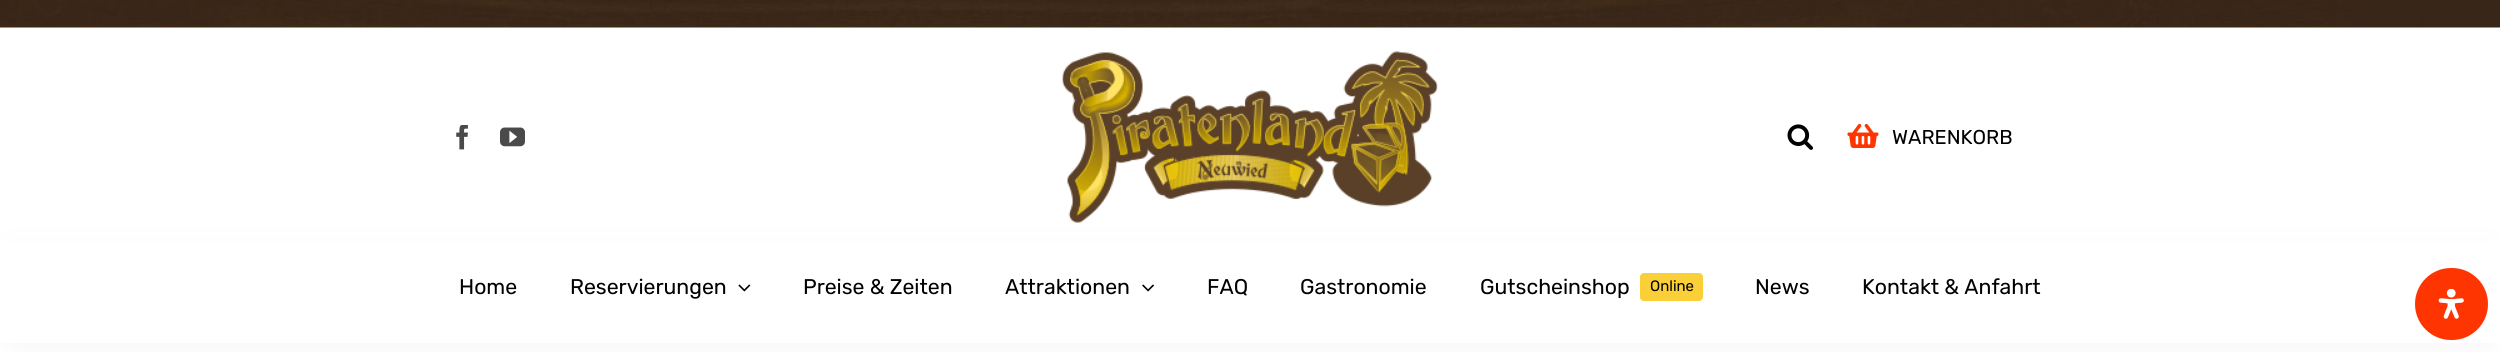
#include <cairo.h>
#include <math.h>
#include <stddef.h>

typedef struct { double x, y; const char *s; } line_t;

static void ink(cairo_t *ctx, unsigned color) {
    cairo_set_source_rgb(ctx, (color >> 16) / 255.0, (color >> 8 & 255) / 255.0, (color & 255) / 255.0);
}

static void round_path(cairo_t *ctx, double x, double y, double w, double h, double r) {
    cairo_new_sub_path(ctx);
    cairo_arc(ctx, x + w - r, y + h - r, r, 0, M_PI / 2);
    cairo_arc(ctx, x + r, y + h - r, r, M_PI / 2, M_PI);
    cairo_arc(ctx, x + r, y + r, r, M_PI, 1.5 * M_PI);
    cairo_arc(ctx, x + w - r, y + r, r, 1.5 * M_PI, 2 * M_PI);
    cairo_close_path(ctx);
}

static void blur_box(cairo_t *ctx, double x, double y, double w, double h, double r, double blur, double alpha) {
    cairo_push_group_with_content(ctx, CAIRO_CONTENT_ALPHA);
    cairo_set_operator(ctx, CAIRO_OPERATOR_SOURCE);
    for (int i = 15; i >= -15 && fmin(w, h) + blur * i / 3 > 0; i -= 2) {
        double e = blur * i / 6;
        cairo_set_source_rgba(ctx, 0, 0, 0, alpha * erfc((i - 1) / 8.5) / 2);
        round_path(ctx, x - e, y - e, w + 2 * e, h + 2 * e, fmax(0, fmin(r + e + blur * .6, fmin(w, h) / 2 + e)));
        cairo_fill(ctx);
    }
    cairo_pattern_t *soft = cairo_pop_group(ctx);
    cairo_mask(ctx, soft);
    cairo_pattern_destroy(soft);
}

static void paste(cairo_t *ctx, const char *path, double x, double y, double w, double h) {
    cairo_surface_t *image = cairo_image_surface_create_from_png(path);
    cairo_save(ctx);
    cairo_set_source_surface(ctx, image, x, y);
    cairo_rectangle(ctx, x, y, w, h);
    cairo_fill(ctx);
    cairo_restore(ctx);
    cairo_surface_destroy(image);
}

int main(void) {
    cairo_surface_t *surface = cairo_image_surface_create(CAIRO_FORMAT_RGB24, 2500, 352);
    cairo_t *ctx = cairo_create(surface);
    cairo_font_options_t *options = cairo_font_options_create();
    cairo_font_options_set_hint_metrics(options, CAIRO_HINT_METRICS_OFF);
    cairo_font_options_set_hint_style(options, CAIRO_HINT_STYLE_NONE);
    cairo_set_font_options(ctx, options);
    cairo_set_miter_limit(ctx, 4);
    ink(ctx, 0xFFFFFF);
    cairo_paint(ctx);
    paste(ctx, "media/1.png", 0, 0, 2500, 28);
    paste(ctx, "media/2.png", 456, 125, 12, 25);
    paste(ctx, "media/3.png", 500, 127, 25, 20);
    paste(ctx, "media/4.png", 1062, 51, 376, 172);
    paste(ctx, "media/5.png", 1787, 124, 26, 26);
    paste(ctx, "media/6.png", 1847, 123, 32, 25);
    cairo_select_font_face(ctx, "Rubik", CAIRO_FONT_SLANT_NORMAL, CAIRO_FONT_WEIGHT_NORMAL);
    cairo_set_font_size(ctx, 20);
    ink(ctx, 0x000000);
    cairo_move_to(ctx, 1892, 144);
    cairo_show_text(ctx, "WARENKORB");
    ink(ctx, 0xEAE1E4);
    blur_box(ctx, 13, 256, 2475, 82, 0, 16, 0.5);
    ink(ctx, 0xFFFFFF);
    cairo_rectangle(ctx, 0, 241, 2500, 102);
    cairo_fill(ctx);
    cairo_set_font_size(ctx, 21.25);
    ink(ctx, 0x000000);
    cairo_move_to(ctx, 459, 294);
    cairo_show_text(ctx, "Home");
    cairo_move_to(ctx, 570, 294);
    cairo_show_text(ctx, "Reservierungen");
    paste(ctx, "media/7.png", 738, 284, 13, 8);
    cairo_move_to(ctx, 803, 294);
    cairo_show_text(ctx, "Preise & Zeiten");
    cairo_move_to(ctx, 1005, 294);
    cairo_show_text(ctx, "Attraktionen");
    paste(ctx, "media/8.png", 1142, 284, 12, 8);
    {
        static const line_t items[] = {
            {1207, 294, "FAQ"},
            {1300, 294, "Gastronomie"},
            {1480, 294, "Gutscheinshop"},
        };
        for (size_t i = 0; i < sizeof items / sizeof *items; i++) {
            cairo_move_to(ctx, items[i].x, items[i].y);
            cairo_show_text(ctx, items[i].s);
        }
    }
    ink(ctx, 0xFBCF38);
    round_path(ctx, 1640, 273, 63, 28, 4);
    cairo_fill(ctx);
    cairo_set_font_size(ctx, 15);
    ink(ctx, 0x000000);
    cairo_move_to(ctx, 1650, 291);
    cairo_show_text(ctx, "Online");
    cairo_set_font_size(ctx, 21.25);
    cairo_move_to(ctx, 1755, 294);
    cairo_show_text(ctx, "News");
    cairo_move_to(ctx, 1862, 294);
    cairo_show_text(ctx, "Kontakt & Anfahrt");
    ink(ctx, 0xFF3501);
    round_path(ctx, 2415, 268, 73, 72, 36);
    cairo_fill(ctx);
    paste(ctx, "media/9.png", 2438, 289, 26, 30);
    cairo_surface_write_to_png(surface, "image.png");
    cairo_font_options_destroy(options);
    cairo_destroy(ctx);
    cairo_surface_destroy(surface);
    return 0;
}
